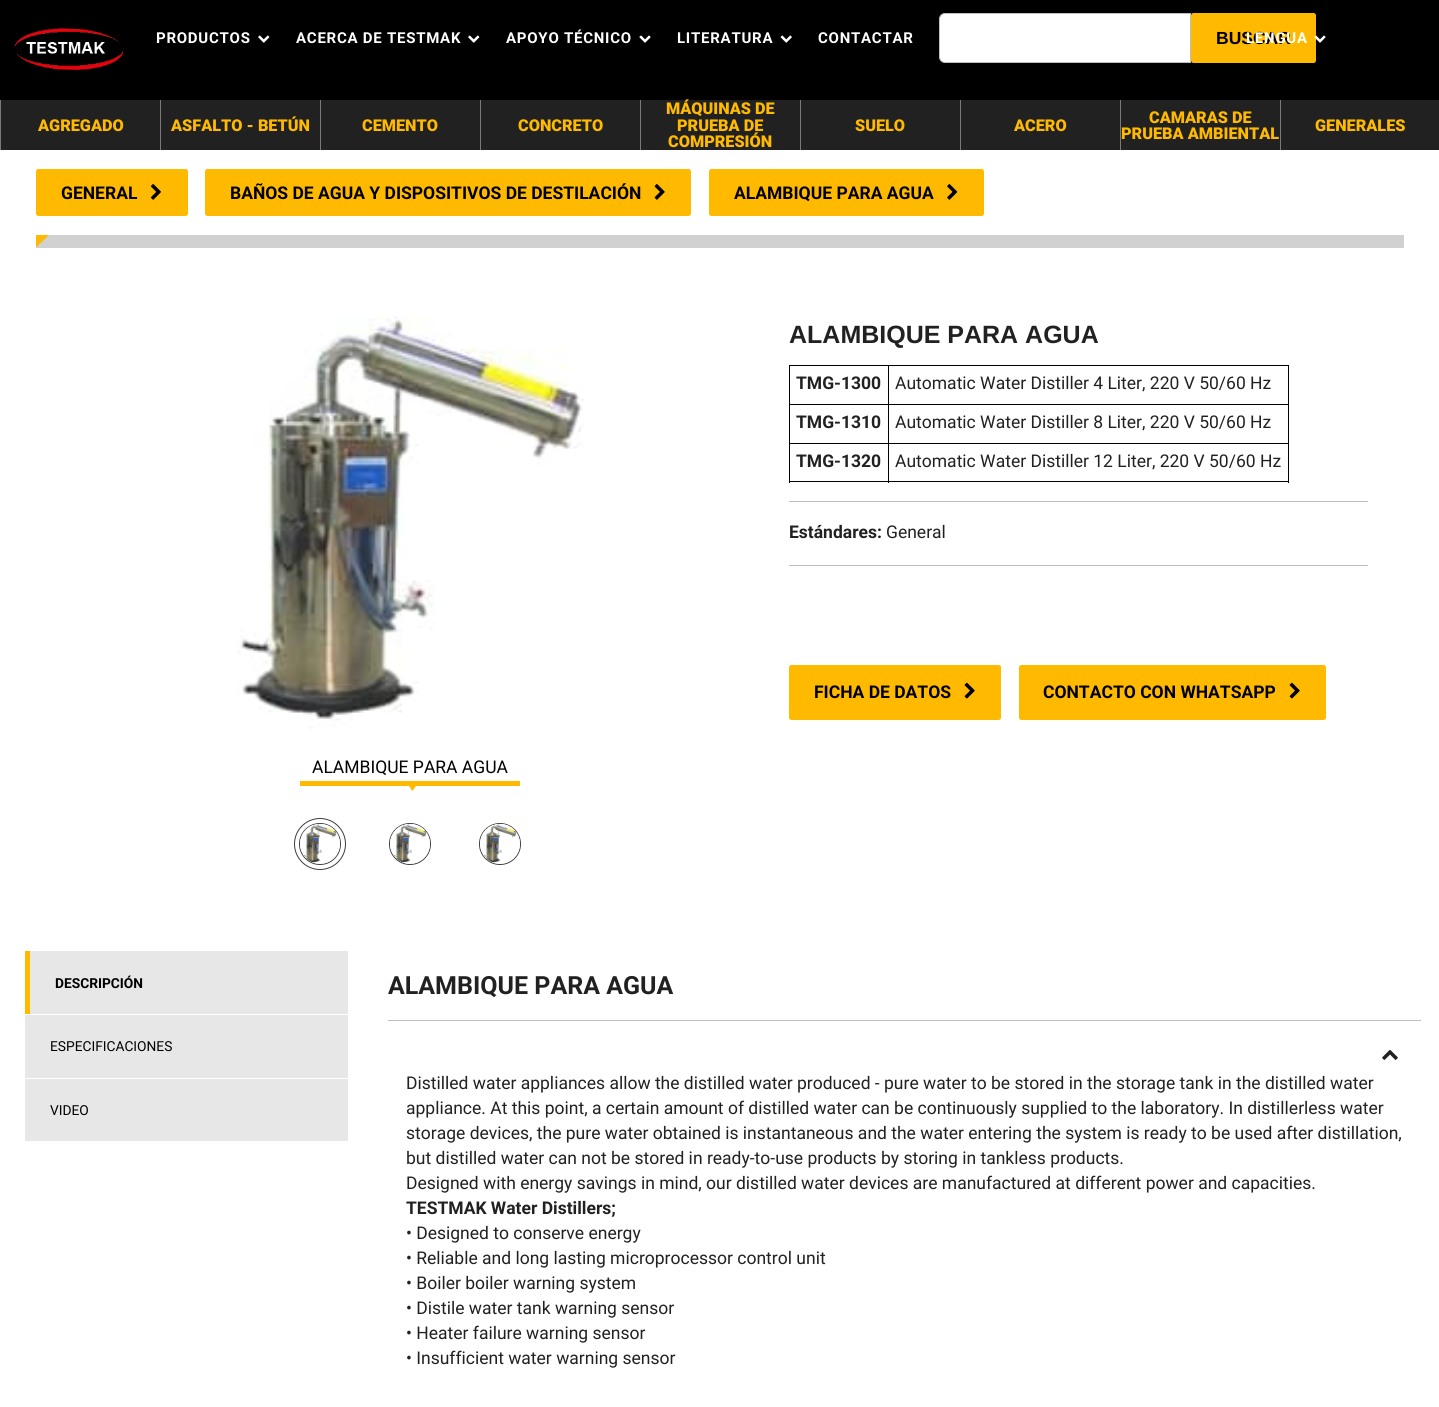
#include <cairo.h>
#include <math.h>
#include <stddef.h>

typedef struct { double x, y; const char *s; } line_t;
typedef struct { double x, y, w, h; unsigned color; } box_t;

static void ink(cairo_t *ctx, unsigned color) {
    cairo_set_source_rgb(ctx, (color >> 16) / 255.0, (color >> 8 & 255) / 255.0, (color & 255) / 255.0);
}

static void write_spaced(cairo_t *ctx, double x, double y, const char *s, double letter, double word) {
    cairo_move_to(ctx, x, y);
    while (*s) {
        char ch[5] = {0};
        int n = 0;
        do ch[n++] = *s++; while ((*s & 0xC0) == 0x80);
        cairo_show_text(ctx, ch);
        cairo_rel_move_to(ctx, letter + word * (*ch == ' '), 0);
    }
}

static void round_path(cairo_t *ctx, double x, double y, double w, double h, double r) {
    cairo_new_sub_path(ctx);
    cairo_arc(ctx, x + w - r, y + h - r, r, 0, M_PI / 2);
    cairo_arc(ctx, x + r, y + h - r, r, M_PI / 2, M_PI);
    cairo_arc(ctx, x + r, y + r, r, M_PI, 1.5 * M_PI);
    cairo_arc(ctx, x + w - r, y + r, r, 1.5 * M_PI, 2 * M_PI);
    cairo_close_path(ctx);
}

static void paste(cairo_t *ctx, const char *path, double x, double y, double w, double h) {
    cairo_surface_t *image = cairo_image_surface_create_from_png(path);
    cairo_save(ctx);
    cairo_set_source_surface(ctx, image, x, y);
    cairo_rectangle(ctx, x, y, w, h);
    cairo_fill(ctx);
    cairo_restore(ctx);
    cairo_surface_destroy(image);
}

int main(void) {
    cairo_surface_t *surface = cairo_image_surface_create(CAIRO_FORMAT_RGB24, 1439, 1407);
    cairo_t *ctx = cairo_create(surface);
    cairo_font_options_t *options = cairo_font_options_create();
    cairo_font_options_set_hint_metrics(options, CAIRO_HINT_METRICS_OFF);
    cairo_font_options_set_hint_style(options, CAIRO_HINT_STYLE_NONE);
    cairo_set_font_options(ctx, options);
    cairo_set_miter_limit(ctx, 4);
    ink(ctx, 0xFFFFFF);
    cairo_paint(ctx);
    ink(ctx, 0x000000);
    cairo_rectangle(ctx, 0, 0, 1439, 100);
    cairo_fill(ctx);
    paste(ctx, "media/1.png", 14, 28, 110, 42);
    cairo_select_font_face(ctx, "Roboto", CAIRO_FONT_SLANT_NORMAL, CAIRO_FONT_WEIGHT_BOLD);
    cairo_set_font_size(ctx, 15);
    ink(ctx, 0xFFFFFF);
    write_spaced(ctx, 156, 43, "PRODUCTOS", 0.75, 0);
    paste(ctx, "media/2.png", 258, 35, 12, 8);
    write_spaced(ctx, 296, 43, "ACERCA DE TESTMAK", 0.75, 0);
    paste(ctx, "media/2.png", 468, 35, 12, 8);
    write_spaced(ctx, 506, 43, "APOYO TÉCNICO", 0.75, 0);
    paste(ctx, "media/3.png", 639, 35, 12, 8);
    write_spaced(ctx, 677, 43, "LITERATURA", 0.75, 0);
    paste(ctx, "media/4.png", 780, 35, 12, 8);
    write_spaced(ctx, 818, 43, "CONTACTAR", 0.75, 0);
    cairo_new_path(ctx);
    cairo_move_to(ctx, 945, 13.5);
    cairo_line_to(ctx, 1190.5, 13.5);
    cairo_line_to(ctx, 1190.5, 62.5);
    cairo_line_to(ctx, 945, 62.5);
    cairo_curve_to(ctx, 942, 62.5, 939.5, 60, 939.5, 57);
    cairo_line_to(ctx, 939.5, 19);
    cairo_curve_to(ctx, 939.5, 16, 942, 13.5, 945, 13.5);
    cairo_close_path(ctx);
    cairo_fill_preserve(ctx);
    ink(ctx, 0xBFBFBF);
    cairo_set_line_width(ctx, 1);
    cairo_stroke(ctx);
    ink(ctx, 0xFFBA00);
    round_path(ctx, 1191, 13, 125, 50, 2.5);
    cairo_fill(ctx);
    cairo_select_font_face(ctx, "Liberation Sans", CAIRO_FONT_SLANT_NORMAL, CAIRO_FONT_WEIGHT_BOLD);
    cairo_set_font_size(ctx, 17.5);
    ink(ctx, 0x000000);
    cairo_move_to(ctx, 1216, 44);
    cairo_show_text(ctx, "BUSCAR");
    cairo_select_font_face(ctx, "Roboto", CAIRO_FONT_SLANT_NORMAL, CAIRO_FONT_WEIGHT_BOLD);
    cairo_set_font_size(ctx, 15);
    ink(ctx, 0xFFFFFF);
    write_spaced(ctx, 1246, 43, "LENGUA", 0.75, 0);
    paste(ctx, "media/5.png", 1314, 35, 12, 8);
    ink(ctx, 0x212121);
    cairo_rectangle(ctx, 1, 100, 1438, 50);
    cairo_fill(ctx);
    ink(ctx, 0x7A7A7A);
    cairo_rectangle(ctx, 0, 100, 1, 50);
    cairo_fill(ctx);
    cairo_select_font_face(ctx, "Roboto Black", CAIRO_FONT_SLANT_NORMAL, CAIRO_FONT_WEIGHT_NORMAL);
    cairo_set_font_size(ctx, 16.25);
    ink(ctx, 0xFFBA00);
    cairo_move_to(ctx, 38, 131);
    cairo_show_text(ctx, "AGREGADO");
    ink(ctx, 0x7A7A7A);
    cairo_rectangle(ctx, 160, 100, 1, 50);
    cairo_fill(ctx);
    ink(ctx, 0xFFBA00);
    cairo_move_to(ctx, 171, 131);
    cairo_show_text(ctx, "ASFALTO - BETÚN");
    ink(ctx, 0x7A7A7A);
    cairo_rectangle(ctx, 320, 100, 1, 50);
    cairo_fill(ctx);
    ink(ctx, 0xFFBA00);
    cairo_move_to(ctx, 362, 131);
    cairo_show_text(ctx, "CEMENTO");
    ink(ctx, 0x7A7A7A);
    cairo_rectangle(ctx, 480, 100, 1, 50);
    cairo_fill(ctx);
    ink(ctx, 0xFFBA00);
    cairo_move_to(ctx, 518, 131);
    cairo_show_text(ctx, "CONCRETO");
    ink(ctx, 0x7A7A7A);
    cairo_rectangle(ctx, 640, 100, 1, 50);
    cairo_fill(ctx);
    ink(ctx, 0xFFBA00);
    {
        static const line_t items[] = {
            {666, 114, "MÁQUINAS DE"},
            {677, 131, "PRUEBA DE"},
            {668, 147, "COMPRESIÓN"},
        };
        for (size_t i = 0; i < sizeof items / sizeof *items; i++) {
            cairo_move_to(ctx, items[i].x, items[i].y);
            cairo_show_text(ctx, items[i].s);
        }
    }
    ink(ctx, 0x7A7A7A);
    cairo_rectangle(ctx, 800, 100, 1, 50);
    cairo_fill(ctx);
    ink(ctx, 0xFFBA00);
    cairo_move_to(ctx, 855, 131);
    cairo_show_text(ctx, "SUELO");
    ink(ctx, 0x7A7A7A);
    cairo_rectangle(ctx, 960, 100, 1, 50);
    cairo_fill(ctx);
    ink(ctx, 0xFFBA00);
    cairo_move_to(ctx, 1014, 131);
    cairo_show_text(ctx, "ACERO");
    ink(ctx, 0x7A7A7A);
    cairo_rectangle(ctx, 1120, 100, 1, 50);
    cairo_fill(ctx);
    ink(ctx, 0xFFBA00);
    cairo_move_to(ctx, 1149, 123);
    cairo_show_text(ctx, "CAMARAS DE");
    cairo_move_to(ctx, 1121, 139);
    cairo_show_text(ctx, "PRUEBA AMBIENTAL");
    ink(ctx, 0x7A7A7A);
    cairo_rectangle(ctx, 1280, 100, 1, 50);
    cairo_fill(ctx);
    ink(ctx, 0xFFBA00);
    cairo_move_to(ctx, 1315, 131);
    cairo_show_text(ctx, "GENERALES");
    round_path(ctx, 36, 169, 152, 47, 2.5);
    cairo_fill(ctx);
    cairo_select_font_face(ctx, "Roboto", CAIRO_FONT_SLANT_NORMAL, CAIRO_FONT_WEIGHT_BOLD);
    cairo_set_font_size(ctx, 17.5);
    ink(ctx, 0x000000);
    cairo_move_to(ctx, 61, 199);
    cairo_show_text(ctx, "GENERAL");
    paste(ctx, "media/6.png", 150, 184, 11, 16);
    ink(ctx, 0xFFBA00);
    round_path(ctx, 205, 169, 486, 47, 2.5);
    cairo_fill(ctx);
    ink(ctx, 0x000000);
    cairo_move_to(ctx, 230, 199);
    cairo_show_text(ctx, "BAÑOS DE AGUA Y DISPOSITIVOS DE DESTILACIÓN");
    paste(ctx, "media/7.png", 654, 184, 11, 16);
    ink(ctx, 0xFFBA00);
    round_path(ctx, 709, 169, 275, 47, 2.5);
    cairo_fill(ctx);
    ink(ctx, 0x000000);
    cairo_move_to(ctx, 734, 199);
    cairo_show_text(ctx, "ALAMBIQUE PARA AGUA");
    paste(ctx, "media/8.png", 947, 184, 11, 16);
    ink(ctx, 0xD1D1D1);
    cairo_rectangle(ctx, 36, 235, 1368, 13);
    cairo_fill(ctx);
    ink(ctx, 0xFFBA00);
    cairo_new_path(ctx);
    cairo_move_to(ctx, 36, 235);
    cairo_line_to(ctx, 49, 235);
    cairo_line_to(ctx, 36, 247.5);
    cairo_close_path(ctx);
    cairo_fill(ctx);
    cairo_select_font_face(ctx, "Liberation Sans", CAIRO_FONT_SLANT_NORMAL, CAIRO_FONT_WEIGHT_BOLD);
    cairo_set_font_size(ctx, 25);
    ink(ctx, 0x212121);
    cairo_move_to(ctx, 789, 343);
    cairo_show_text(ctx, "ALAMBIQUE PARA AGUA");
    {
        static const box_t items[] = {
            {789, 501, 579, 1, 0xBDBDBD},
            {888, 365, 401, 1, 0x000000},
            {888, 404, 401, 1, 0x000000},
            {888, 443, 401, 1, 0x000000},
            {1288, 443, 1, 40, 0x000000},
            {888, 481, 401, 1, 0x000000},
            {888, 443, 1, 40, 0x000000},
            {789, 443, 100, 1, 0x000000},
            {888, 404, 1, 40, 0x000000},
            {789, 404, 100, 1, 0x000000},
            {888, 365, 1, 40, 0x000000},
            {789, 365, 100, 1, 0x000000},
            {789, 481, 100, 1, 0x000000},
            {789, 443, 1, 40, 0x000000},
            {789, 404, 1, 40, 0x000000},
            {789, 365, 1, 40, 0x000000},
        };
        for (size_t i = 0; i < sizeof items / sizeof *items; i++) {
            ink(ctx, items[i].color);
            cairo_rectangle(ctx, items[i].x, items[i].y, items[i].w, items[i].h);
            cairo_fill(ctx);
        }
    }
    cairo_select_font_face(ctx, "Roboto", CAIRO_FONT_SLANT_NORMAL, CAIRO_FONT_WEIGHT_BOLD);
    cairo_set_font_size(ctx, 17.5);
    ink(ctx, 0x212121);
    cairo_move_to(ctx, 796, 389);
    cairo_show_text(ctx, "TMG-1300");
    ink(ctx, 0x000000);
    cairo_rectangle(ctx, 1288, 404, 1, 40);
    cairo_fill(ctx);
    cairo_rectangle(ctx, 1288, 365, 1, 40);
    cairo_fill(ctx);
    cairo_select_font_face(ctx, "Roboto", CAIRO_FONT_SLANT_NORMAL, CAIRO_FONT_WEIGHT_NORMAL);
    ink(ctx, 0x212121);
    cairo_move_to(ctx, 895, 389);
    cairo_show_text(ctx, "Automatic Water Distiller 4 Liter, 220 V 50/60 Hz");
    cairo_select_font_face(ctx, "Roboto", CAIRO_FONT_SLANT_NORMAL, CAIRO_FONT_WEIGHT_BOLD);
    cairo_move_to(ctx, 796, 428);
    cairo_show_text(ctx, "TMG-1310");
    cairo_select_font_face(ctx, "Roboto", CAIRO_FONT_SLANT_NORMAL, CAIRO_FONT_WEIGHT_NORMAL);
    cairo_move_to(ctx, 895, 428);
    cairo_show_text(ctx, "Automatic Water Distiller 8 Liter, 220 V 50/60 Hz");
    cairo_select_font_face(ctx, "Roboto", CAIRO_FONT_SLANT_NORMAL, CAIRO_FONT_WEIGHT_BOLD);
    cairo_move_to(ctx, 796, 467);
    cairo_show_text(ctx, "TMG-1320");
    cairo_select_font_face(ctx, "Roboto", CAIRO_FONT_SLANT_NORMAL, CAIRO_FONT_WEIGHT_NORMAL);
    cairo_move_to(ctx, 895, 467);
    cairo_show_text(ctx, "Automatic Water Distiller 12 Liter, 220 V 50/60 Hz");
    ink(ctx, 0xBDBDBD);
    cairo_rectangle(ctx, 789, 565, 579, 1);
    cairo_fill(ctx);
    cairo_select_font_face(ctx, "Roboto", CAIRO_FONT_SLANT_NORMAL, CAIRO_FONT_WEIGHT_BOLD);
    ink(ctx, 0x212121);
    cairo_move_to(ctx, 789, 538);
    cairo_show_text(ctx, "Estándares:");
    cairo_select_font_face(ctx, "Roboto", CAIRO_FONT_SLANT_NORMAL, CAIRO_FONT_WEIGHT_NORMAL);
    cairo_move_to(ctx, 886, 538);
    cairo_show_text(ctx, "General");
    ink(ctx, 0xFFBA00);
    round_path(ctx, 789, 665, 212, 55, 2.5);
    cairo_fill(ctx);
    cairo_select_font_face(ctx, "Roboto", CAIRO_FONT_SLANT_NORMAL, CAIRO_FONT_WEIGHT_BOLD);
    ink(ctx, 0x000000);
    cairo_move_to(ctx, 814, 698);
    cairo_show_text(ctx, "FICHA DE DATOS");
    paste(ctx, "media/9.png", 964, 682, 11, 17);
    ink(ctx, 0xFFBA00);
    round_path(ctx, 1019, 665, 307, 55, 2.5);
    cairo_fill(ctx);
    ink(ctx, 0x000000);
    cairo_move_to(ctx, 1043, 698);
    cairo_show_text(ctx, "CONTACTO CON WHATSAPP");
    paste(ctx, "media/9.png", 1289, 682, 11, 17);
    paste(ctx, "media/10.png", 237, 316, 347, 413);
    ink(ctx, 0xFFBA00);
    cairo_rectangle(ctx, 300, 781, 220, 5);
    cairo_fill(ctx);
    cairo_select_font_face(ctx, "Roboto", CAIRO_FONT_SLANT_NORMAL, CAIRO_FONT_WEIGHT_NORMAL);
    ink(ctx, 0x000000);
    cairo_move_to(ctx, 312, 773);
    cairo_show_text(ctx, "ALAMBIQUE PARA AGUA");
    ink(ctx, 0xFFBA00);
    cairo_new_path(ctx);
    cairo_move_to(ctx, 409, 786);
    cairo_line_to(ctx, 416, 786);
    cairo_line_to(ctx, 412.5, 791);
    cairo_close_path(ctx);
    cairo_fill(ctx);
    cairo_arc(ctx, 320, 844, 25.5, 0, 2 * M_PI);
    ink(ctx, 0x3E3E3E);
    cairo_stroke(ctx);
    cairo_arc(ctx, 320, 844, 20.5, 0, 2 * M_PI);
    cairo_stroke(ctx);
    paste(ctx, "media/11.png", 300, 823, 40, 41);
    cairo_arc(ctx, 410, 844, 20.5, 0, 2 * M_PI);
    cairo_stroke(ctx);
    paste(ctx, "media/12.png", 390, 823, 40, 41);
    cairo_arc(ctx, 500, 844, 20.5, 0, 2 * M_PI);
    cairo_stroke(ctx);
    paste(ctx, "media/13.png", 480, 823, 40, 41);
    ink(ctx, 0xE7E7E7);
    cairo_rectangle(ctx, 30, 951, 318, 63);
    cairo_fill(ctx);
    ink(ctx, 0xFFBA00);
    cairo_rectangle(ctx, 25, 951, 5, 63);
    cairo_fill(ctx);
    cairo_select_font_face(ctx, "Roboto", CAIRO_FONT_SLANT_NORMAL, CAIRO_FONT_WEIGHT_BOLD);
    cairo_set_font_size(ctx, 13.75);
    ink(ctx, 0x000000);
    cairo_move_to(ctx, 55, 988);
    cairo_show_text(ctx, "DESCRIPCIÓN");
    ink(ctx, 0xE7E7E7);
    cairo_rectangle(ctx, 25, 1015, 323, 63);
    cairo_fill(ctx);
    cairo_select_font_face(ctx, "Roboto", CAIRO_FONT_SLANT_NORMAL, CAIRO_FONT_WEIGHT_NORMAL);
    ink(ctx, 0x000000);
    cairo_move_to(ctx, 50, 1051);
    cairo_show_text(ctx, "ESPECIFICACIONES");
    ink(ctx, 0xE7E7E7);
    cairo_rectangle(ctx, 25, 1079, 323, 62);
    cairo_fill(ctx);
    ink(ctx, 0x000000);
    cairo_move_to(ctx, 50, 1115);
    cairo_show_text(ctx, "VIDEO");
    cairo_select_font_face(ctx, "Roboto", CAIRO_FONT_SLANT_NORMAL, CAIRO_FONT_WEIGHT_BOLD);
    cairo_set_font_size(ctx, 25);
    ink(ctx, 0x212121);
    cairo_move_to(ctx, 388, 994);
    cairo_show_text(ctx, "ALAMBIQUE PARA AGUA");
    ink(ctx, 0xBDBDBD);
    cairo_rectangle(ctx, 388, 1020, 1033, 1);
    cairo_fill(ctx);
    paste(ctx, "media/14.png", 1382, 1049, 16, 11);
    cairo_select_font_face(ctx, "Roboto", CAIRO_FONT_SLANT_NORMAL, CAIRO_FONT_WEIGHT_NORMAL);
    cairo_set_font_size(ctx, 17.5);
    ink(ctx, 0x212121);
    {
        static const line_t items[] = {
            {406, 1089, "Distilled water appliances allow the distilled water produced - pure water to be stored in the storage tank in the distilled water"},
            {406, 1114, "appliance. At this point, a certain amount of distilled water can be continuously supplied to the laboratory. In distillerless water"},
            {406, 1139, "storage devices, the pure water obtained is instantaneous and the water entering the system is ready to be used after distillation,"},
            {406, 1164, "but distilled water can not be stored in ready-to-use products by storing in tankless products."},
            {406, 1189, "Designed with energy savings in mind, our distilled water devices are manufactured at different power and capacities."},
        };
        for (size_t i = 0; i < sizeof items / sizeof *items; i++) {
            cairo_move_to(ctx, items[i].x, items[i].y);
            cairo_show_text(ctx, items[i].s);
        }
    }
    cairo_select_font_face(ctx, "Roboto", CAIRO_FONT_SLANT_NORMAL, CAIRO_FONT_WEIGHT_BOLD);
    cairo_move_to(ctx, 406, 1214);
    cairo_show_text(ctx, "TESTMAK Water Distillers;");
    cairo_select_font_face(ctx, "Roboto", CAIRO_FONT_SLANT_NORMAL, CAIRO_FONT_WEIGHT_NORMAL);
    {
        static const line_t items[] = {
            {406, 1239, "• Designed to conserve energy"},
            {406, 1264, "• Reliable and long lasting microprocessor control unit"},
            {406, 1289, "• Boiler boiler warning system"},
            {406, 1314, "• Distile water tank warning sensor"},
            {406, 1339, "• Heater failure warning sensor"},
            {406, 1364, "• Insufficient water warning sensor"},
        };
        for (size_t i = 0; i < sizeof items / sizeof *items; i++) {
            cairo_move_to(ctx, items[i].x, items[i].y);
            cairo_show_text(ctx, items[i].s);
        }
    }
    cairo_surface_write_to_png(surface, "image.png");
    cairo_font_options_destroy(options);
    cairo_destroy(ctx);
    cairo_surface_destroy(surface);
    return 0;
}
